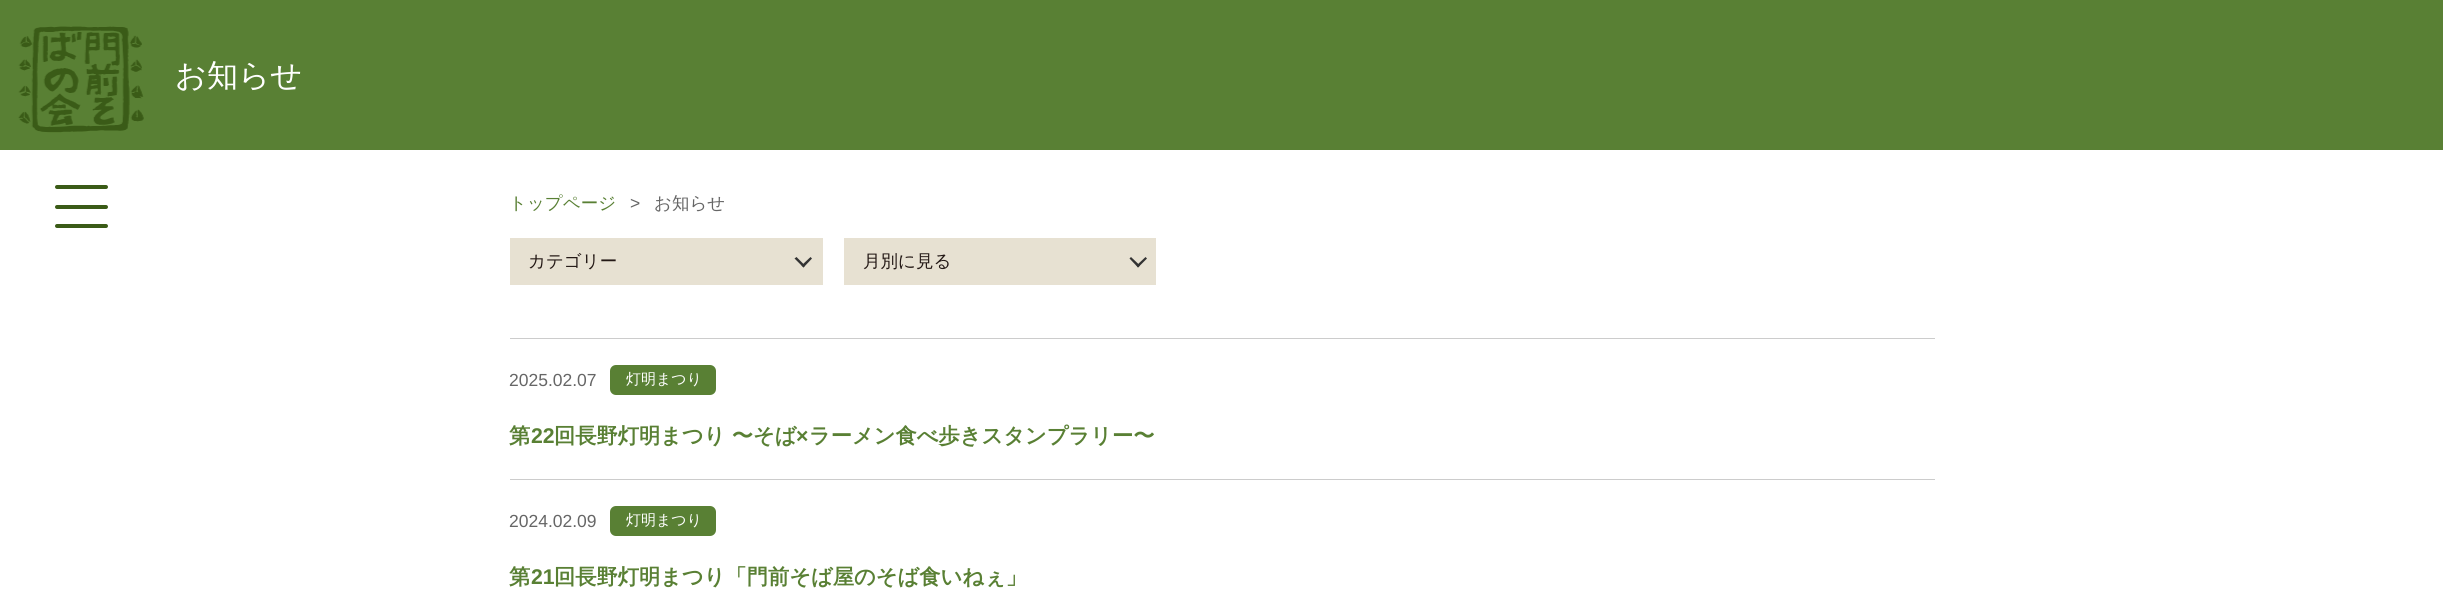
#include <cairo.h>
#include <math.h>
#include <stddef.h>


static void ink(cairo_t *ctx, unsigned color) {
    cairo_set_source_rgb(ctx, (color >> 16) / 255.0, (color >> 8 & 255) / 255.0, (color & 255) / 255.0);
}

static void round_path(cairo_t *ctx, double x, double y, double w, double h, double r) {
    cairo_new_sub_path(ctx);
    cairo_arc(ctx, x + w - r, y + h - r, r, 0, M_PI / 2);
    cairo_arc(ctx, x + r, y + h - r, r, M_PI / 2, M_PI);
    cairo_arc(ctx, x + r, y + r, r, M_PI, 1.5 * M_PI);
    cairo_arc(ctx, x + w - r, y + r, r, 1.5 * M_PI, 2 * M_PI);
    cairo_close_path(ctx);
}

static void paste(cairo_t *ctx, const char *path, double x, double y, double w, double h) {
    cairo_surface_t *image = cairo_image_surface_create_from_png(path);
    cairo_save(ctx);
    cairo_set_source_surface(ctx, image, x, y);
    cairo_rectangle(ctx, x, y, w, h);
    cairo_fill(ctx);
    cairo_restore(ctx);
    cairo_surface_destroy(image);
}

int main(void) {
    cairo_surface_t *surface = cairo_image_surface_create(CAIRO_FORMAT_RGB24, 2443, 613);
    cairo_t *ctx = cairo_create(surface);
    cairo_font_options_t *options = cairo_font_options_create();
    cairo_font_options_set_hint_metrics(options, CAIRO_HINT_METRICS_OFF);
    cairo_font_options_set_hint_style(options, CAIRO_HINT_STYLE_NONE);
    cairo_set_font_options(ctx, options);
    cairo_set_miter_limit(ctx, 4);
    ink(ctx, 0xFFFFFF);
    cairo_paint(ctx);
    ink(ctx, 0x598034);
    cairo_rectangle(ctx, 0, 0, 2443, 150);
    cairo_fill(ctx);
    paste(ctx, "media/1.png", 18, 26, 126, 107);
    ink(ctx, 0x3A5B17);
    round_path(ctx, 55, 185, 53, 4, 2);
    cairo_fill(ctx);
    round_path(ctx, 55, 205, 53, 4, 2);
    cairo_fill(ctx);
    round_path(ctx, 55, 224, 53, 4, 2);
    cairo_fill(ctx);
    cairo_select_font_face(ctx, "WenQuanYi Zen Hei Medium", CAIRO_FONT_SLANT_NORMAL, CAIRO_FONT_WEIGHT_NORMAL);
    cairo_set_font_size(ctx, 31.25);
    ink(ctx, 0xFFFFFF);
    cairo_move_to(ctx, 175, 86);
    cairo_show_text(ctx, "お知らせ");
    cairo_set_font_size(ctx, 17.5);
    ink(ctx, 0x598034);
    cairo_move_to(ctx, 509, 209);
    cairo_show_text(ctx, "トップページ");
    cairo_select_font_face(ctx, "Liberation Sans", CAIRO_FONT_SLANT_NORMAL, CAIRO_FONT_WEIGHT_NORMAL);
    ink(ctx, 0x666666);
    cairo_move_to(ctx, 630, 209);
    cairo_show_text(ctx, ">");
    cairo_select_font_face(ctx, "WenQuanYi Zen Hei Medium", CAIRO_FONT_SLANT_NORMAL, CAIRO_FONT_WEIGHT_NORMAL);
    cairo_move_to(ctx, 654, 209);
    cairo_show_text(ctx, "お知らせ");
    ink(ctx, 0xE7E1D2);
    cairo_rectangle(ctx, 510, 238, 313, 47);
    cairo_fill(ctx);
    ink(ctx, 0x231815);
    cairo_move_to(ctx, 528, 267);
    cairo_show_text(ctx, "カテゴリー");
    ink(ctx, 0x333333);
    cairo_new_path(ctx);
    cairo_move_to(ctx, 810.5, 257);
    cairo_line_to(ctx, 812, 258.5);
    cairo_line_to(ctx, 803.5, 267.5);
    cairo_line_to(ctx, 801.5, 265.5);
    cairo_close_path(ctx);
    cairo_fill(ctx);
    cairo_new_path(ctx);
    cairo_move_to(ctx, 796.5, 257);
    cairo_line_to(ctx, 805, 265.5);
    cairo_line_to(ctx, 803.5, 267.5);
    cairo_line_to(ctx, 794.5, 258.5);
    cairo_close_path(ctx);
    cairo_fill(ctx);
    ink(ctx, 0xE7E1D2);
    cairo_rectangle(ctx, 844, 238, 312, 47);
    cairo_fill(ctx);
    ink(ctx, 0x231815);
    cairo_move_to(ctx, 863, 267);
    cairo_show_text(ctx, "月別に見る");
    ink(ctx, 0x333333);
    cairo_new_path(ctx);
    cairo_move_to(ctx, 1145.5, 257);
    cairo_line_to(ctx, 1147, 258.5);
    cairo_line_to(ctx, 1138, 267.5);
    cairo_line_to(ctx, 1136.5, 265.5);
    cairo_close_path(ctx);
    cairo_fill(ctx);
    cairo_new_path(ctx);
    cairo_move_to(ctx, 1131, 257);
    cairo_line_to(ctx, 1140, 265.5);
    cairo_line_to(ctx, 1138, 267.5);
    cairo_line_to(ctx, 1129.5, 258.5);
    cairo_close_path(ctx);
    cairo_fill(ctx);
    ink(ctx, 0xCCCCCC);
    cairo_rectangle(ctx, 510, 338, 1425, 1);
    cairo_fill(ctx);
    cairo_rectangle(ctx, 510, 479, 1425, 1);
    cairo_fill(ctx);
    cairo_select_font_face(ctx, "Liberation Sans", CAIRO_FONT_SLANT_NORMAL, CAIRO_FONT_WEIGHT_NORMAL);
    ink(ctx, 0x666666);
    cairo_move_to(ctx, 509, 386);
    cairo_show_text(ctx, "2025.02.07");
    ink(ctx, 0x598034);
    round_path(ctx, 610, 365, 106, 30, 6);
    cairo_fill(ctx);
    cairo_select_font_face(ctx, "WenQuanYi Zen Hei Medium", CAIRO_FONT_SLANT_NORMAL, CAIRO_FONT_WEIGHT_NORMAL);
    cairo_set_font_size(ctx, 15);
    ink(ctx, 0xFFFFFF);
    cairo_move_to(ctx, 626, 384);
    cairo_show_text(ctx, "灯明まつり");
    cairo_select_font_face(ctx, "WenQuanYi Zen Hei", CAIRO_FONT_SLANT_NORMAL, CAIRO_FONT_WEIGHT_BOLD);
    cairo_set_font_size(ctx, 21.25);
    ink(ctx, 0x598034);
    cairo_move_to(ctx, 509, 443);
    cairo_show_text(ctx, "第");
    cairo_select_font_face(ctx, "Liberation Sans", CAIRO_FONT_SLANT_NORMAL, CAIRO_FONT_WEIGHT_BOLD);
    cairo_move_to(ctx, 531, 443);
    cairo_show_text(ctx, "22");
    cairo_select_font_face(ctx, "WenQuanYi Zen Hei", CAIRO_FONT_SLANT_NORMAL, CAIRO_FONT_WEIGHT_BOLD);
    cairo_move_to(ctx, 554, 443);
    cairo_show_text(ctx, "回長野灯明まつり 〜そば");
    cairo_select_font_face(ctx, "Liberation Sans", CAIRO_FONT_SLANT_NORMAL, CAIRO_FONT_WEIGHT_BOLD);
    cairo_move_to(ctx, 796, 443);
    cairo_show_text(ctx, "×");
    cairo_select_font_face(ctx, "WenQuanYi Zen Hei", CAIRO_FONT_SLANT_NORMAL, CAIRO_FONT_WEIGHT_BOLD);
    cairo_move_to(ctx, 809, 443);
    cairo_show_text(ctx, "ラーメン食べ歩きスタンプラリー〜");
    cairo_select_font_face(ctx, "Liberation Sans", CAIRO_FONT_SLANT_NORMAL, CAIRO_FONT_WEIGHT_NORMAL);
    cairo_set_font_size(ctx, 17.5);
    ink(ctx, 0x666666);
    cairo_move_to(ctx, 509, 527);
    cairo_show_text(ctx, "2024.02.09");
    ink(ctx, 0x598034);
    round_path(ctx, 610, 506, 106, 30, 6);
    cairo_fill(ctx);
    cairo_select_font_face(ctx, "WenQuanYi Zen Hei Medium", CAIRO_FONT_SLANT_NORMAL, CAIRO_FONT_WEIGHT_NORMAL);
    cairo_set_font_size(ctx, 15);
    ink(ctx, 0xFFFFFF);
    cairo_move_to(ctx, 626, 525);
    cairo_show_text(ctx, "灯明まつり");
    cairo_select_font_face(ctx, "WenQuanYi Zen Hei", CAIRO_FONT_SLANT_NORMAL, CAIRO_FONT_WEIGHT_BOLD);
    cairo_set_font_size(ctx, 21.25);
    ink(ctx, 0x598034);
    cairo_move_to(ctx, 509, 584);
    cairo_show_text(ctx, "第");
    cairo_select_font_face(ctx, "Liberation Sans", CAIRO_FONT_SLANT_NORMAL, CAIRO_FONT_WEIGHT_BOLD);
    cairo_move_to(ctx, 531, 584);
    cairo_show_text(ctx, "21");
    cairo_select_font_face(ctx, "WenQuanYi Zen Hei", CAIRO_FONT_SLANT_NORMAL, CAIRO_FONT_WEIGHT_BOLD);
    cairo_move_to(ctx, 554, 584);
    cairo_show_text(ctx, "回長野灯明まつり「門前そば屋のそば食いねぇ」");
    cairo_surface_write_to_png(surface, "image.png");
    cairo_font_options_destroy(options);
    cairo_destroy(ctx);
    cairo_surface_destroy(surface);
    return 0;
}
